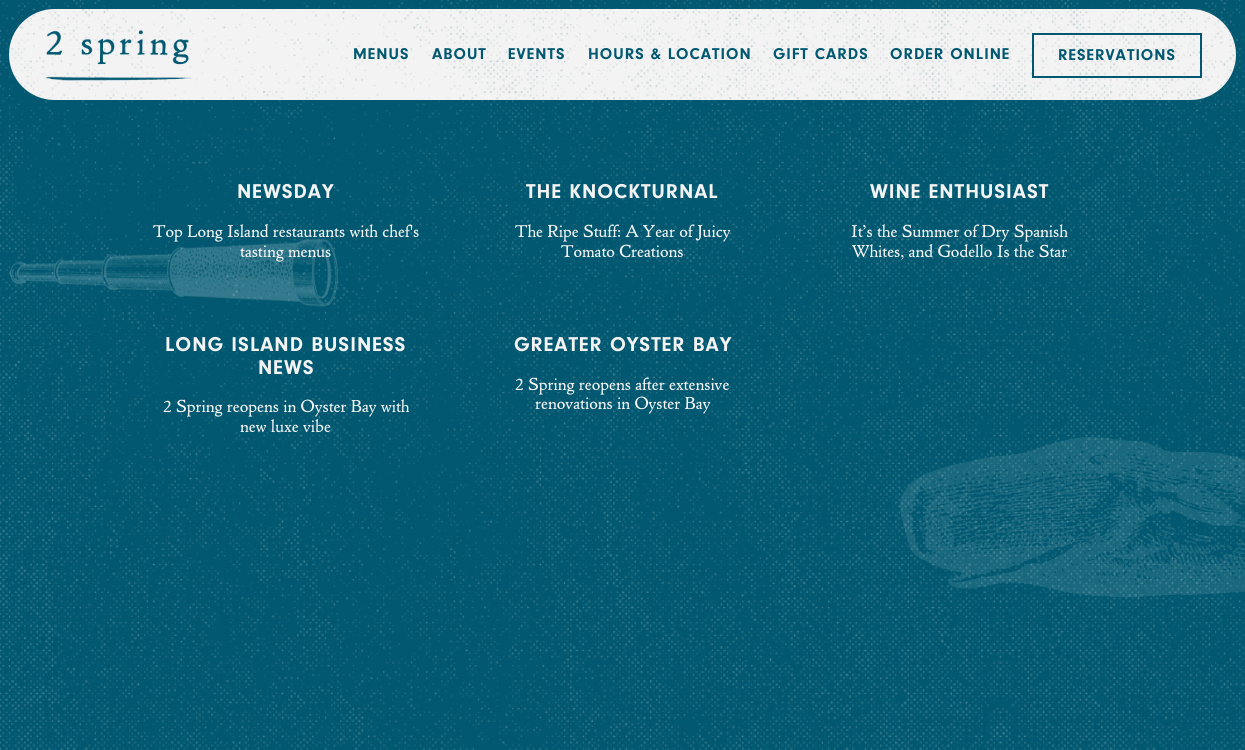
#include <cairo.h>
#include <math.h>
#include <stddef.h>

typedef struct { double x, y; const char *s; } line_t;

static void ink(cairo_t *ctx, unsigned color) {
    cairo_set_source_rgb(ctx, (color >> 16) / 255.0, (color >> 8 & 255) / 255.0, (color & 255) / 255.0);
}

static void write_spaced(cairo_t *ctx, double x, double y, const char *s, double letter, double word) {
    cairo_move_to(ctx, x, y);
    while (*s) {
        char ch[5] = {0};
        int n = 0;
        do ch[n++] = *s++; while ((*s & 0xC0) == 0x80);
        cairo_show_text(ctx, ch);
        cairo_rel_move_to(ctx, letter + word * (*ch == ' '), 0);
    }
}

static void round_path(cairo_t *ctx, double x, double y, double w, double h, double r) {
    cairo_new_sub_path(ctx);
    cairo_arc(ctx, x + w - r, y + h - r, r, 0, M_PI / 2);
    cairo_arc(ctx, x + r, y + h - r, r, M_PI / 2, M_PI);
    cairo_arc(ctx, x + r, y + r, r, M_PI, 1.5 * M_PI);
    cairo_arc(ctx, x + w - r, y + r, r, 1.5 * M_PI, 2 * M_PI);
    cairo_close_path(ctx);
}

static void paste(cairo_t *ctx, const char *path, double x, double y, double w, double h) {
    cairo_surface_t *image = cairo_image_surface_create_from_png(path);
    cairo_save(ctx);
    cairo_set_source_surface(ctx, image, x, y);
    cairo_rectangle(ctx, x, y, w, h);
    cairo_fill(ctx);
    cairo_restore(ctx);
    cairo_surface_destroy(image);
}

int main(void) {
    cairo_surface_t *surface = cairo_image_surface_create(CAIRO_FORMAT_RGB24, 1245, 750);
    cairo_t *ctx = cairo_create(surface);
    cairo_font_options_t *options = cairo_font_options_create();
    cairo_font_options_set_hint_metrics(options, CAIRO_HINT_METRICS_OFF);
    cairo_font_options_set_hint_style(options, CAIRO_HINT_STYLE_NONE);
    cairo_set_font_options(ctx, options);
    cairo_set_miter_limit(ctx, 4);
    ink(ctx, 0x015870);
    cairo_paint(ctx);
    paste(ctx, "media/1.png", 0, 0, 1245, 750);
    ink(ctx, 0xF3F3F3);
    round_path(ctx, 9, 9, 1227, 91, 45.5);
    cairo_fill(ctx);
    paste(ctx, "media/2.png", 9, 9, 1227, 91);
    paste(ctx, "media/3.png", 44, 30, 148, 51);
    cairo_select_font_face(ctx, "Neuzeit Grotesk", CAIRO_FONT_SLANT_NORMAL, CAIRO_FONT_WEIGHT_BOLD);
    cairo_set_font_size(ctx, 16.25);
    ink(ctx, 0x015870);
    {
        static const line_t items[] = {
            {353, 59, "MENUS"},
            {432, 59, "ABOUT"},
            {508, 59, "EVENTS"},
            {588, 59, "HOURS & LOCATION"},
            {773, 59, "GIFT CARDS"},
            {890, 59, "ORDER ONLINE"},
        };
        for (size_t i = 0; i < sizeof items / sizeof *items; i++) {
            write_spaced(ctx, items[i].x, items[i].y, items[i].s, 1, 0);
        }
    }
    cairo_rectangle(ctx, 1033, 34, 168, 43);
    cairo_stroke(ctx);
    write_spaced(ctx, 1058, 60, "RESERVATIONS", 1, 0);
    cairo_set_font_size(ctx, 20.75);
    ink(ctx, 0xF3F3F3);
    write_spaced(ctx, 237, 198, "NEWSDAY", 1, 0);
    paste(ctx, "media/4.png", 10, 238, 328, 69);
    cairo_select_font_face(ctx, "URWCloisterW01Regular", CAIRO_FONT_SLANT_NORMAL, CAIRO_FONT_WEIGHT_NORMAL);
    cairo_set_font_size(ctx, 18);
    cairo_move_to(ctx, 153, 237);
    cairo_show_text(ctx, "Top Long Island restaurants with chef's");
    cairo_move_to(ctx, 240, 257);
    cairo_show_text(ctx, "tasting menus");
    cairo_select_font_face(ctx, "Neuzeit Grotesk", CAIRO_FONT_SLANT_NORMAL, CAIRO_FONT_WEIGHT_BOLD);
    cairo_set_font_size(ctx, 20.75);
    write_spaced(ctx, 526, 198, "THE KNOCKTURNAL", 1, 0);
    cairo_select_font_face(ctx, "URWCloisterW01Regular", CAIRO_FONT_SLANT_NORMAL, CAIRO_FONT_WEIGHT_NORMAL);
    cairo_set_font_size(ctx, 18);
    cairo_move_to(ctx, 515, 237);
    cairo_show_text(ctx, "The Ripe Stuff: A Year of Juicy");
    cairo_move_to(ctx, 561, 257);
    cairo_show_text(ctx, "Tomato Creations");
    cairo_select_font_face(ctx, "Neuzeit Grotesk", CAIRO_FONT_SLANT_NORMAL, CAIRO_FONT_WEIGHT_BOLD);
    cairo_set_font_size(ctx, 20.75);
    write_spaced(ctx, 870, 198, "WINE ENTHUSIAST", 1, 0);
    cairo_select_font_face(ctx, "URWCloisterW01Regular", CAIRO_FONT_SLANT_NORMAL, CAIRO_FONT_WEIGHT_NORMAL);
    cairo_set_font_size(ctx, 18);
    cairo_move_to(ctx, 851, 237);
    cairo_show_text(ctx, "It’s the Summer of Dry Spanish");
    cairo_move_to(ctx, 852, 257);
    cairo_show_text(ctx, "Whites, and Godello Is the Star");
    cairo_select_font_face(ctx, "Neuzeit Grotesk", CAIRO_FONT_SLANT_NORMAL, CAIRO_FONT_WEIGHT_BOLD);
    cairo_set_font_size(ctx, 20.75);
    write_spaced(ctx, 165, 351, "LONG ISLAND BUSINESS", 1, 0);
    write_spaced(ctx, 258, 374, "NEWS", 1, 0);
    cairo_select_font_face(ctx, "URWCloisterW01Regular", CAIRO_FONT_SLANT_NORMAL, CAIRO_FONT_WEIGHT_NORMAL);
    cairo_set_font_size(ctx, 18);
    cairo_move_to(ctx, 163, 412);
    cairo_show_text(ctx, "2 Spring reopens in Oyster Bay with");
    cairo_move_to(ctx, 240, 432);
    cairo_show_text(ctx, "new luxe vibe");
    cairo_select_font_face(ctx, "Neuzeit Grotesk", CAIRO_FONT_SLANT_NORMAL, CAIRO_FONT_WEIGHT_BOLD);
    cairo_set_font_size(ctx, 20.75);
    write_spaced(ctx, 514, 351, "GREATER OYSTER BAY", 1, 0);
    cairo_select_font_face(ctx, "URWCloisterW01Regular", CAIRO_FONT_SLANT_NORMAL, CAIRO_FONT_WEIGHT_NORMAL);
    cairo_set_font_size(ctx, 18);
    cairo_move_to(ctx, 515, 390);
    cairo_show_text(ctx, "2 Spring reopens after extensive");
    cairo_move_to(ctx, 535, 409);
    cairo_show_text(ctx, "renovations in Oyster Bay");
    paste(ctx, "media/5.png", 900, 437, 345, 161);
    cairo_surface_write_to_png(surface, "image.png");
    cairo_font_options_destroy(options);
    cairo_destroy(ctx);
    cairo_surface_destroy(surface);
    return 0;
}
